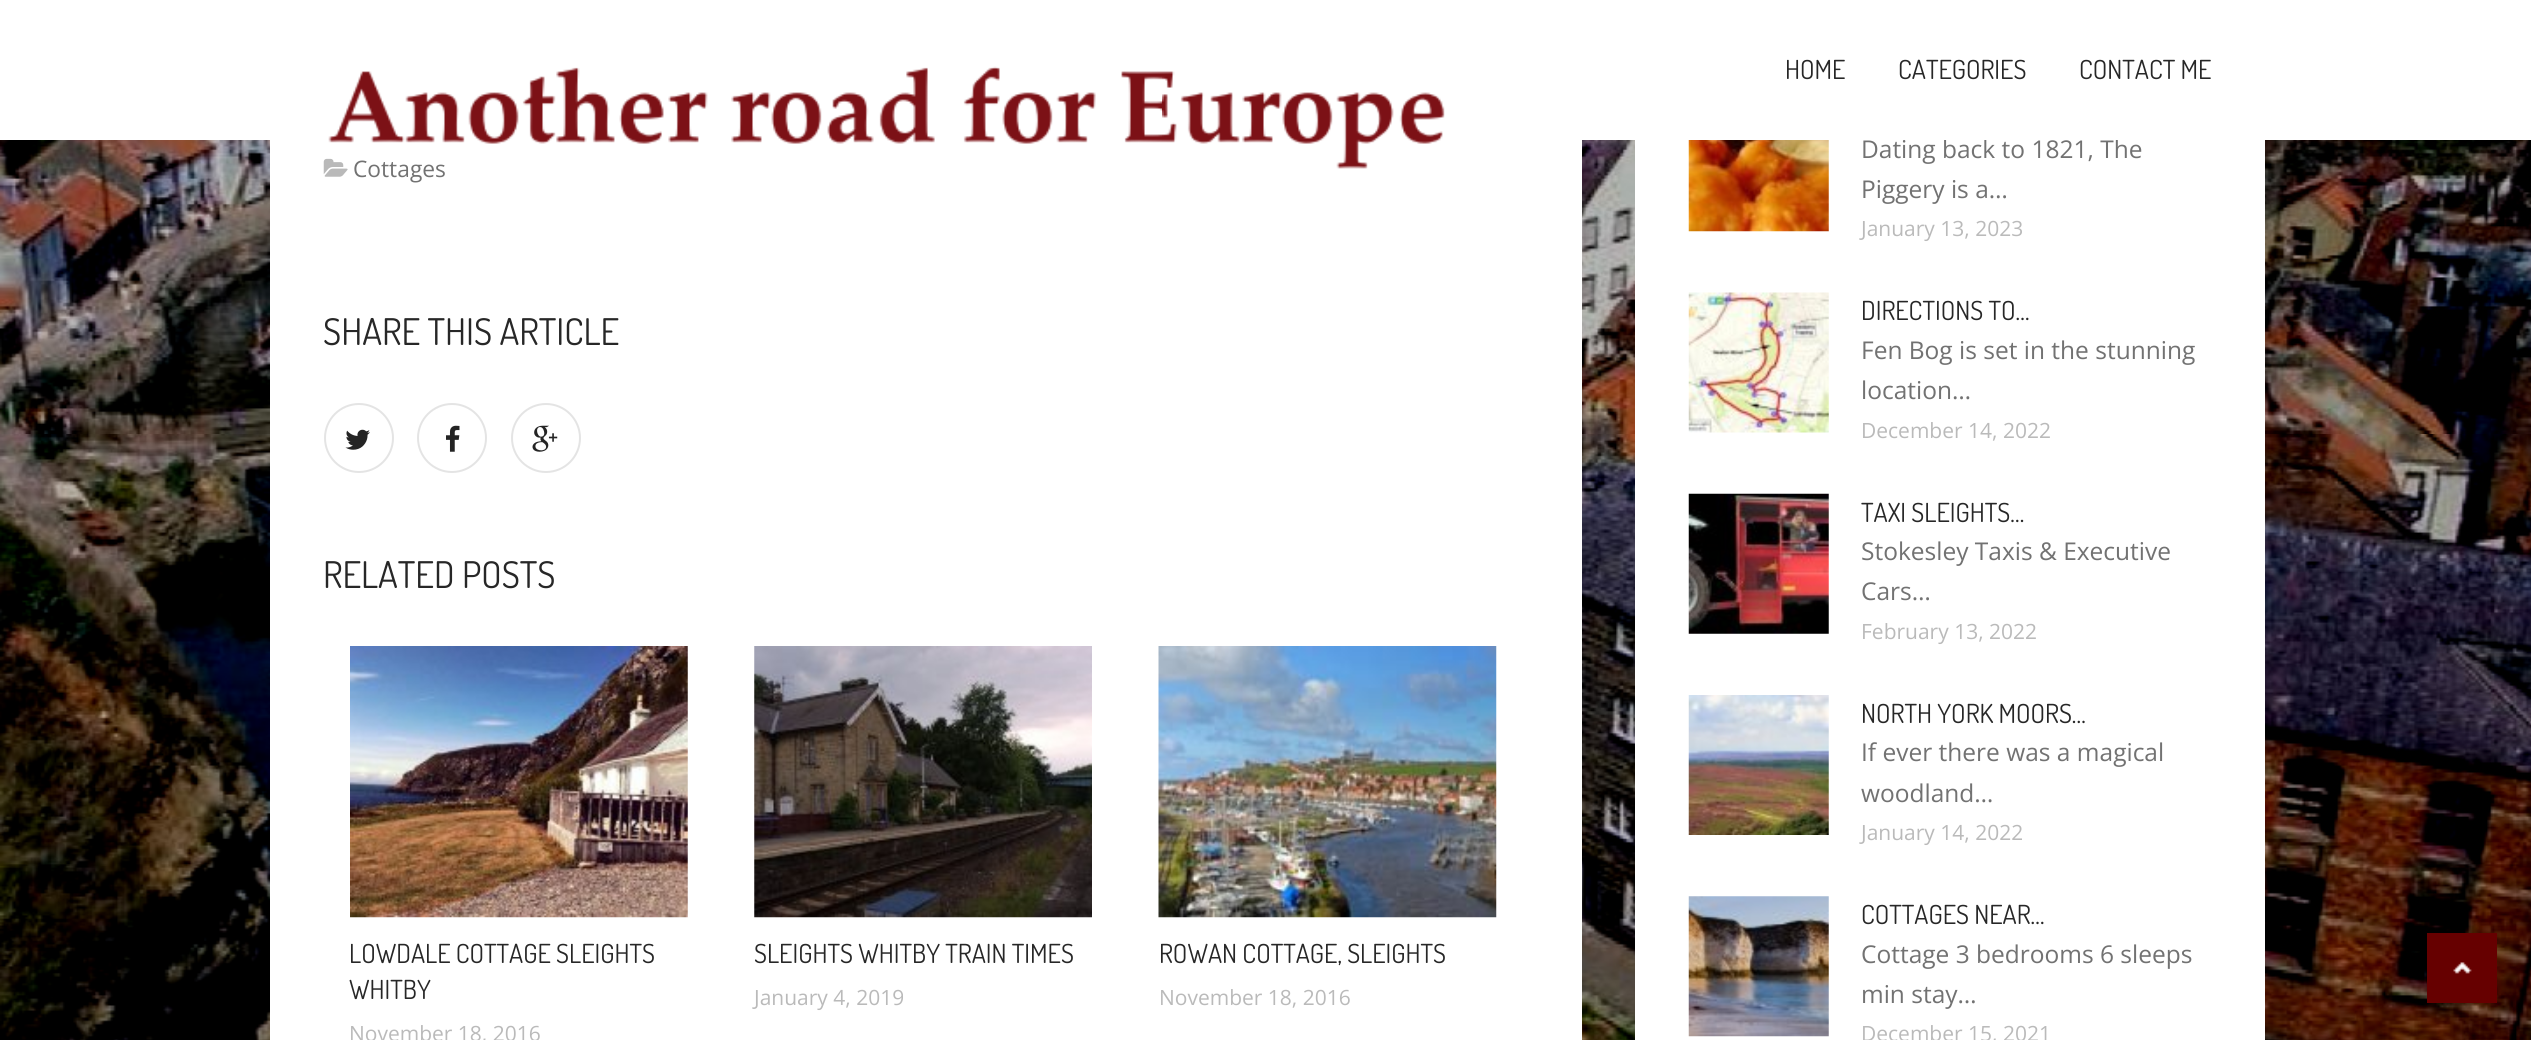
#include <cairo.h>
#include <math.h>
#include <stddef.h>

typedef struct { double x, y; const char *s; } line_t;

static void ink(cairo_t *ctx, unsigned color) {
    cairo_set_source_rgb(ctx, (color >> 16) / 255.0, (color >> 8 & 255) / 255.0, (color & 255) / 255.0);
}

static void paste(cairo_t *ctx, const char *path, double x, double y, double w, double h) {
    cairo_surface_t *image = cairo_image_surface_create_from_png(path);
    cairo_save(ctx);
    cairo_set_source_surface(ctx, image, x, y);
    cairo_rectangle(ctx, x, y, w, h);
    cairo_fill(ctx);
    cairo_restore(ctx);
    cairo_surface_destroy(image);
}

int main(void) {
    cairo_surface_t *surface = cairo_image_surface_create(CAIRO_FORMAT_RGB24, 2531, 1040);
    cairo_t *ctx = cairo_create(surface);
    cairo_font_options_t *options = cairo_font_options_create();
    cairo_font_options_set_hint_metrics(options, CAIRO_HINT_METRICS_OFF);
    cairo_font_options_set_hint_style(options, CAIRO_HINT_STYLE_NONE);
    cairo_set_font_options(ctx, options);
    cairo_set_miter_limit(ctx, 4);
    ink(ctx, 0xFFFFFF);
    cairo_paint(ctx);
    paste(ctx, "media/2.png", 0, 140, 2531, 900);
    ink(ctx, 0xFFFFFF);
    cairo_rectangle(ctx, 1635, 140, 630, 900);
    cairo_fill(ctx);
    cairo_select_font_face(ctx, "Open Sans", CAIRO_FONT_SLANT_NORMAL, CAIRO_FONT_WEIGHT_NORMAL);
    cairo_set_font_size(ctx, 24.5);
    ink(ctx, 0x727272);
    cairo_move_to(ctx, 1861, 158);
    cairo_show_text(ctx, "Dating back to 1821, The");
    ink(ctx, 0xFFFFFF);
    cairo_rectangle(ctx, 1944, 139, 174, 1);
    cairo_fill(ctx);
    cairo_rectangle(ctx, 270, 140, 1312, 900);
    cairo_fill(ctx);
    paste(ctx, "media/3.png", 323, 158, 25, 19);
    cairo_set_font_size(ctx, 22.75);
    ink(ctx, 0x727272);
    cairo_move_to(ctx, 353, 177);
    cairo_show_text(ctx, "Cottages");
    paste(ctx, "media/1.png", 328, 66, 1117, 103);
    cairo_select_font_face(ctx, "Dosis", CAIRO_FONT_SLANT_NORMAL, CAIRO_FONT_WEIGHT_NORMAL);
    cairo_set_font_size(ctx, 26.25);
    ink(ctx, 0x272727);
    {
        static const line_t items[] = {
            {1785, 79, "HOME"},
            {1898, 79, "CATEGORIES"},
            {2079, 79, "CONTACT ME"},
        };
        for (size_t i = 0; i < sizeof items / sizeof *items; i++) {
            cairo_move_to(ctx, items[i].x, items[i].y);
            cairo_show_text(ctx, items[i].s);
        }
    }
    cairo_set_font_size(ctx, 36.75);
    cairo_move_to(ctx, 323, 345);
    cairo_show_text(ctx, "SHARE THIS ARTICLE");
    cairo_new_path(ctx);
    cairo_arc(ctx, 359, 438, 34, 0, 2 * M_PI);
    ink(ctx, 0xE4E4E4);
    cairo_stroke(ctx);
    paste(ctx, "media/4.png", 345, 429, 25, 21);
    cairo_arc(ctx, 452, 438, 34, 0, 2 * M_PI);
    cairo_stroke(ctx);
    paste(ctx, "media/5.png", 446, 425, 14, 27);
    cairo_arc(ctx, 546, 438, 34, 0, 2 * M_PI);
    cairo_stroke(ctx);
    paste(ctx, "media/6.png", 532, 425, 26, 27);
    ink(ctx, 0x272727);
    cairo_move_to(ctx, 323, 588);
    cairo_show_text(ctx, "RELATED POSTS");
    paste(ctx, "media/7.png", 350, 646, 338, 272);
    cairo_set_font_size(ctx, 26.25);
    cairo_move_to(ctx, 349, 963);
    cairo_show_text(ctx, "LOWDALE COTTAGE SLEIGHTS");
    cairo_move_to(ctx, 349, 999);
    cairo_show_text(ctx, "WHITBY");
    cairo_select_font_face(ctx, "Open Sans", CAIRO_FONT_SLANT_NORMAL, CAIRO_FONT_WEIGHT_NORMAL);
    cairo_set_font_size(ctx, 21);
    ink(ctx, 0xBABABA);
    cairo_move_to(ctx, 349, 1041);
    cairo_show_text(ctx, "November 18, 2016");
    paste(ctx, "media/8.png", 754, 646, 338, 272);
    cairo_select_font_face(ctx, "Dosis", CAIRO_FONT_SLANT_NORMAL, CAIRO_FONT_WEIGHT_NORMAL);
    cairo_set_font_size(ctx, 26.25);
    ink(ctx, 0x272727);
    cairo_move_to(ctx, 754, 963);
    cairo_show_text(ctx, "SLEIGHTS WHITBY TRAIN TIMES");
    cairo_select_font_face(ctx, "Open Sans", CAIRO_FONT_SLANT_NORMAL, CAIRO_FONT_WEIGHT_NORMAL);
    cairo_set_font_size(ctx, 21);
    ink(ctx, 0xBABABA);
    cairo_move_to(ctx, 754, 1005);
    cairo_show_text(ctx, "January 4, 2019");
    paste(ctx, "media/9.png", 1158, 646, 339, 272);
    cairo_select_font_face(ctx, "Dosis", CAIRO_FONT_SLANT_NORMAL, CAIRO_FONT_WEIGHT_NORMAL);
    cairo_set_font_size(ctx, 26.25);
    ink(ctx, 0x272727);
    cairo_move_to(ctx, 1159, 963);
    cairo_show_text(ctx, "ROWAN COTTAGE, SLEIGHTS");
    cairo_select_font_face(ctx, "Open Sans", CAIRO_FONT_SLANT_NORMAL, CAIRO_FONT_WEIGHT_NORMAL);
    cairo_set_font_size(ctx, 21);
    ink(ctx, 0xBABABA);
    cairo_move_to(ctx, 1159, 1005);
    cairo_show_text(ctx, "November 18, 2016");
    paste(ctx, "media/10.png", 1688, 140, 141, 92);
    cairo_set_font_size(ctx, 24.5);
    ink(ctx, 0x727272);
    cairo_move_to(ctx, 1861, 198);
    cairo_show_text(ctx, "Piggery is a…");
    cairo_set_font_size(ctx, 21);
    ink(ctx, 0xBABABA);
    cairo_move_to(ctx, 1861, 236);
    cairo_show_text(ctx, "January 13, 2023");
    paste(ctx, "media/11.png", 1688, 292, 141, 141);
    cairo_select_font_face(ctx, "Dosis", CAIRO_FONT_SLANT_NORMAL, CAIRO_FONT_WEIGHT_NORMAL);
    cairo_set_font_size(ctx, 26.25);
    ink(ctx, 0x272727);
    cairo_move_to(ctx, 1861, 320);
    cairo_show_text(ctx, "DIRECTIONS TO…");
    cairo_select_font_face(ctx, "Open Sans", CAIRO_FONT_SLANT_NORMAL, CAIRO_FONT_WEIGHT_NORMAL);
    cairo_set_font_size(ctx, 24.5);
    ink(ctx, 0x727272);
    cairo_move_to(ctx, 1861, 359);
    cairo_show_text(ctx, "Fen Bog is set in the stunning");
    cairo_move_to(ctx, 1861, 399);
    cairo_show_text(ctx, "location…");
    cairo_set_font_size(ctx, 21);
    ink(ctx, 0xBABABA);
    cairo_move_to(ctx, 1861, 438);
    cairo_show_text(ctx, "December 14, 2022");
    paste(ctx, "media/12.png", 1688, 493, 141, 141);
    cairo_select_font_face(ctx, "Dosis", CAIRO_FONT_SLANT_NORMAL, CAIRO_FONT_WEIGHT_NORMAL);
    cairo_set_font_size(ctx, 26.25);
    ink(ctx, 0x272727);
    cairo_move_to(ctx, 1861, 522);
    cairo_show_text(ctx, "TAXI SLEIGHTS…");
    cairo_select_font_face(ctx, "Open Sans", CAIRO_FONT_SLANT_NORMAL, CAIRO_FONT_WEIGHT_NORMAL);
    cairo_set_font_size(ctx, 24.5);
    ink(ctx, 0x727272);
    cairo_move_to(ctx, 1861, 560);
    cairo_show_text(ctx, "Stokesley Taxis & Executive");
    cairo_move_to(ctx, 1861, 600);
    cairo_show_text(ctx, "Cars…");
    cairo_set_font_size(ctx, 21);
    ink(ctx, 0xBABABA);
    cairo_move_to(ctx, 1861, 639);
    cairo_show_text(ctx, "February 13, 2022");
    paste(ctx, "media/13.png", 1688, 695, 141, 140);
    cairo_select_font_face(ctx, "Dosis", CAIRO_FONT_SLANT_NORMAL, CAIRO_FONT_WEIGHT_NORMAL);
    cairo_set_font_size(ctx, 26.25);
    ink(ctx, 0x272727);
    cairo_move_to(ctx, 1861, 723);
    cairo_show_text(ctx, "NORTH YORK MOORS…");
    cairo_select_font_face(ctx, "Open Sans", CAIRO_FONT_SLANT_NORMAL, CAIRO_FONT_WEIGHT_NORMAL);
    cairo_set_font_size(ctx, 24.5);
    ink(ctx, 0x727272);
    cairo_move_to(ctx, 1861, 761);
    cairo_show_text(ctx, "If ever there was a magical");
    cairo_move_to(ctx, 1861, 802);
    cairo_show_text(ctx, "woodland…");
    cairo_set_font_size(ctx, 21);
    ink(ctx, 0xBABABA);
    cairo_move_to(ctx, 1861, 840);
    cairo_show_text(ctx, "January 14, 2022");
    paste(ctx, "media/14.png", 1688, 896, 141, 141);
    cairo_select_font_face(ctx, "Dosis", CAIRO_FONT_SLANT_NORMAL, CAIRO_FONT_WEIGHT_NORMAL);
    cairo_set_font_size(ctx, 26.25);
    ink(ctx, 0x272727);
    cairo_move_to(ctx, 1861, 924);
    cairo_show_text(ctx, "COTTAGES NEAR…");
    cairo_select_font_face(ctx, "Open Sans", CAIRO_FONT_SLANT_NORMAL, CAIRO_FONT_WEIGHT_NORMAL);
    cairo_set_font_size(ctx, 24.5);
    ink(ctx, 0x727272);
    cairo_move_to(ctx, 1861, 963);
    cairo_show_text(ctx, "Cottage 3 bedrooms 6 sleeps");
    cairo_move_to(ctx, 1861, 1003);
    cairo_show_text(ctx, "min stay…");
    cairo_set_font_size(ctx, 21);
    ink(ctx, 0xBABABA);
    cairo_move_to(ctx, 1861, 1041);
    cairo_show_text(ctx, "December 15, 2021");
    ink(ctx, 0x660000);
    cairo_rectangle(ctx, 2427, 933, 70, 70);
    cairo_fill(ctx);
    paste(ctx, "media/15.png", 2453, 962, 19, 12);
    cairo_surface_write_to_png(surface, "image.png");
    cairo_font_options_destroy(options);
    cairo_destroy(ctx);
    cairo_surface_destroy(surface);
    return 0;
}
